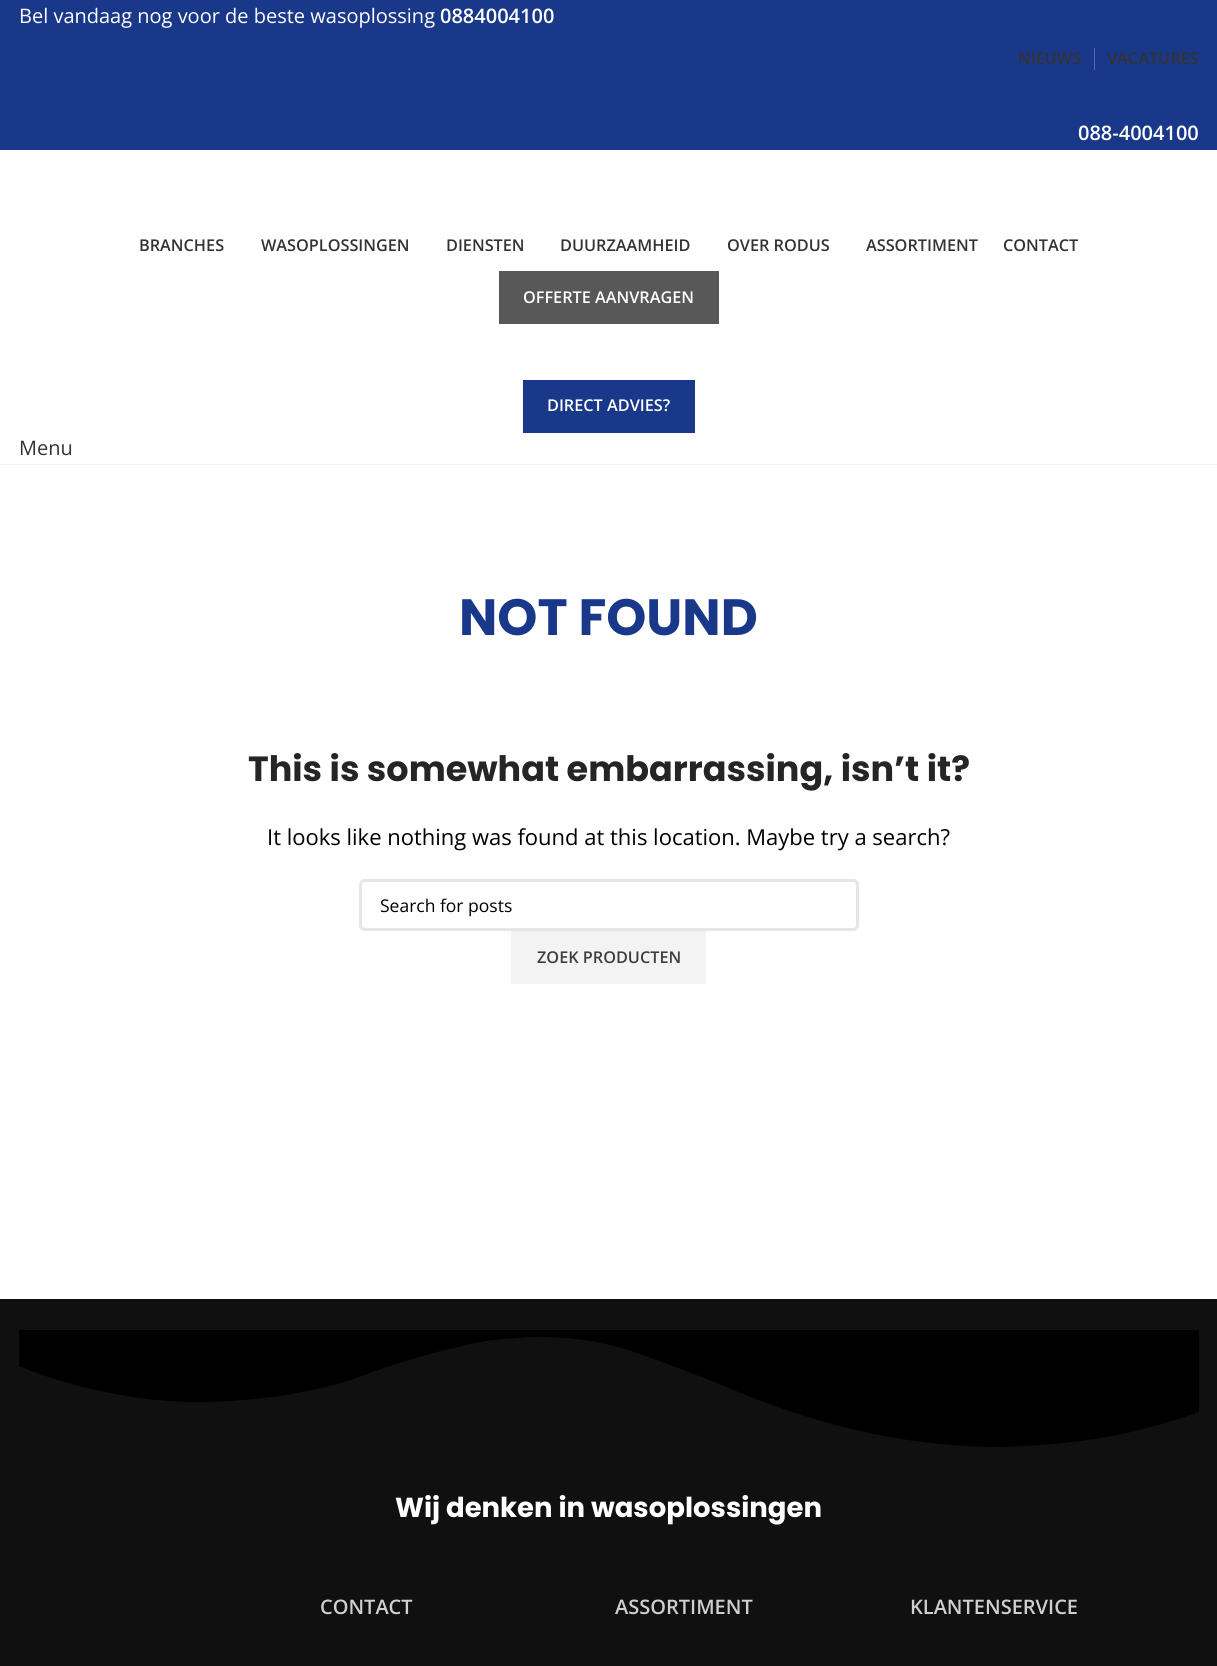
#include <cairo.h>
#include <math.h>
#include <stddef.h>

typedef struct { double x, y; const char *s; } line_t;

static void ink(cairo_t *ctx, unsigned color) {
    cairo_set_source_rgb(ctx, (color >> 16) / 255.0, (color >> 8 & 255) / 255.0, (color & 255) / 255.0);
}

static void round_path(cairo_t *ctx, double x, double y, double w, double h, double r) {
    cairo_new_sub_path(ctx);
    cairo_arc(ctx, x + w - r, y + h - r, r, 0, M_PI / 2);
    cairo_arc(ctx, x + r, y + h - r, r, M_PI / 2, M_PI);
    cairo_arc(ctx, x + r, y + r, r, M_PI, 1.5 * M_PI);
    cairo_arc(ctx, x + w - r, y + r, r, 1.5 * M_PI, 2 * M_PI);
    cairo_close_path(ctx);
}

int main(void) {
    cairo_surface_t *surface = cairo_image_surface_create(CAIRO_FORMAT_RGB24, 1217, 1666);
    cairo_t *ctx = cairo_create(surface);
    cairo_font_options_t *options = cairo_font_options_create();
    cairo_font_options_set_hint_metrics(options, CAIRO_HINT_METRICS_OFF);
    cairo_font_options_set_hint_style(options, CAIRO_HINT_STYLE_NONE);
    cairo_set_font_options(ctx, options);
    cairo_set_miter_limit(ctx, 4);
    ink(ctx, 0xFFFFFF);
    cairo_paint(ctx);
    ink(ctx, 0x1A3889);
    cairo_rectangle(ctx, 0, 0, 1217, 150);
    cairo_fill(ctx);
    cairo_select_font_face(ctx, "Open Sans", CAIRO_FONT_SLANT_NORMAL, CAIRO_FONT_WEIGHT_NORMAL);
    cairo_set_font_size(ctx, 20);
    ink(ctx, 0xFFFFFF);
    cairo_move_to(ctx, 19, 23);
    cairo_show_text(ctx, "Bel vandaag nog voor de beste wasoplossing");
    cairo_select_font_face(ctx, "Open Sans SemiBold", CAIRO_FONT_SLANT_NORMAL, CAIRO_FONT_WEIGHT_NORMAL);
    cairo_move_to(ctx, 440, 23);
    cairo_show_text(ctx, "0884004100");
    cairo_set_font_size(ctx, 16.25);
    ink(ctx, 0x333333);
    cairo_move_to(ctx, 1018, 64);
    cairo_show_text(ctx, "NIEUWS");
    ink(ctx, 0x536AA7);
    cairo_rectangle(ctx, 1094, 48, 1, 22);
    cairo_fill(ctx);
    ink(ctx, 0x333333);
    cairo_move_to(ctx, 1107, 64);
    cairo_show_text(ctx, "VACATURES");
    cairo_set_font_size(ctx, 20);
    ink(ctx, 0xFFFFFF);
    cairo_move_to(ctx, 1078, 140);
    cairo_show_text(ctx, "088-4004100");
    ink(ctx, 0xF2F2F2);
    cairo_rectangle(ctx, 0, 464, 1217, 1);
    cairo_fill(ctx);
    cairo_set_font_size(ctx, 16.25);
    ink(ctx, 0x333333);
    {
        static const line_t items[] = {
            {139, 251, "BRANCHES"},
            {261, 251, "WASOPLOSSINGEN"},
            {446, 251, "DIENSTEN"},
            {560, 251, "DUURZAAMHEID"},
            {727, 251, "OVER RODUS"},
            {866, 251, "ASSORTIMENT"},
            {1003, 251, "CONTACT"},
        };
        for (size_t i = 0; i < sizeof items / sizeof *items; i++) {
            cairo_move_to(ctx, items[i].x, items[i].y);
            cairo_show_text(ctx, items[i].s);
        }
    }
    ink(ctx, 0x585858);
    cairo_rectangle(ctx, 499, 271, 220, 53);
    cairo_fill(ctx);
    ink(ctx, 0xFFFFFF);
    cairo_move_to(ctx, 523, 303);
    cairo_show_text(ctx, "OFFERTE AANVRAGEN");
    ink(ctx, 0x1A3889);
    cairo_rectangle(ctx, 523, 380, 172, 53);
    cairo_fill(ctx);
    ink(ctx, 0xFFFFFF);
    cairo_move_to(ctx, 547, 411);
    cairo_show_text(ctx, "DIRECT ADVIES?");
    cairo_select_font_face(ctx, "Open Sans", CAIRO_FONT_SLANT_NORMAL, CAIRO_FONT_WEIGHT_NORMAL);
    cairo_set_font_size(ctx, 20);
    ink(ctx, 0x333333);
    cairo_move_to(ctx, 19, 455);
    cairo_show_text(ctx, "Menu");
    cairo_select_font_face(ctx, "Poppins", CAIRO_FONT_SLANT_NORMAL, CAIRO_FONT_WEIGHT_BOLD);
    cairo_set_font_size(ctx, 51);
    ink(ctx, 0x1A3889);
    cairo_move_to(ctx, 459, 635);
    cairo_show_text(ctx, "NOT FOUND");
    cairo_set_font_size(ctx, 35);
    ink(ctx, 0x252525);
    cairo_move_to(ctx, 248, 781);
    cairo_show_text(ctx, "This is somewhat embarrassing, isn’t it?");
    cairo_select_font_face(ctx, "Open Sans", CAIRO_FONT_SLANT_NORMAL, CAIRO_FONT_WEIGHT_NORMAL);
    cairo_set_font_size(ctx, 22);
    ink(ctx, 0x000000);
    cairo_move_to(ctx, 267, 845);
    cairo_show_text(ctx, "It looks like nothing was found at this location. Maybe try a search?");
    round_path(ctx, 360.5, 880.5, 497, 49, 4.5);
    ink(ctx, 0xE6E6E6);
    cairo_set_line_width(ctx, 3);
    cairo_stroke(ctx);
    cairo_set_font_size(ctx, 17.5);
    ink(ctx, 0x000000);
    cairo_move_to(ctx, 380, 912);
    cairo_show_text(ctx, "Search for posts");
    ink(ctx, 0xF3F3F3);
    cairo_rectangle(ctx, 511, 931, 195, 53);
    cairo_fill(ctx);
    cairo_select_font_face(ctx, "Open Sans SemiBold", CAIRO_FONT_SLANT_NORMAL, CAIRO_FONT_WEIGHT_NORMAL);
    cairo_set_font_size(ctx, 16.25);
    ink(ctx, 0x3E3E3E);
    cairo_move_to(ctx, 537, 963);
    cairo_show_text(ctx, "ZOEK PRODUCTEN");
    ink(ctx, 0x101010);
    cairo_rectangle(ctx, 0, 1299, 1217, 367);
    cairo_fill(ctx);
    ink(ctx, 0x000000);
    cairo_new_path(ctx);
    cairo_move_to(ctx, 517, 1338);
    cairo_curve_to(ctx, 543, 1335, 577, 1338, 606, 1344);
    cairo_curve_to(ctx, 633, 1350, 689, 1372, 724, 1386);
    cairo_curve_to(ctx, 814, 1424, 882, 1439, 951, 1445);
    cairo_curve_to(ctx, 979, 1447, 1009, 1449, 1073, 1442);
    cairo_curve_to(ctx, 1138, 1435, 1199, 1412, 1199, 1412);
    cairo_line_to(ctx, 1199, 1330);
    cairo_line_to(ctx, 19, 1330);
    cairo_line_to(ctx, 19, 1366);
    cairo_curve_to(ctx, 19, 1366, 104, 1404, 206, 1402);
    cairo_curve_to(ctx, 252, 1401, 315, 1394, 364, 1375);
    cairo_curve_to(ctx, 389, 1366, 425, 1354, 458, 1347);
    cairo_curve_to(ctx, 490, 1339, 504, 1339, 517, 1338);
    cairo_close_path(ctx);
    cairo_fill(ctx);
    cairo_select_font_face(ctx, "Poppins", CAIRO_FONT_SLANT_NORMAL, CAIRO_FONT_WEIGHT_BOLD);
    cairo_set_font_size(ctx, 27.5);
    ink(ctx, 0xFFFFFF);
    cairo_move_to(ctx, 395, 1517);
    cairo_show_text(ctx, "Wij denken in wasoplossingen");
    cairo_select_font_face(ctx, "Open Sans SemiBold", CAIRO_FONT_SLANT_NORMAL, CAIRO_FONT_WEIGHT_NORMAL);
    cairo_set_font_size(ctx, 20);
    ink(ctx, 0xCFCFCF);
    {
        static const line_t items[] = {
            {320, 1614, "CONTACT"},
            {615, 1614, "ASSORTIMENT"},
            {910, 1614, "KLANTENSERVICE"},
        };
        for (size_t i = 0; i < sizeof items / sizeof *items; i++) {
            cairo_move_to(ctx, items[i].x, items[i].y);
            cairo_show_text(ctx, items[i].s);
        }
    }
    cairo_surface_write_to_png(surface, "image.png");
    cairo_font_options_destroy(options);
    cairo_destroy(ctx);
    cairo_surface_destroy(surface);
    return 0;
}
